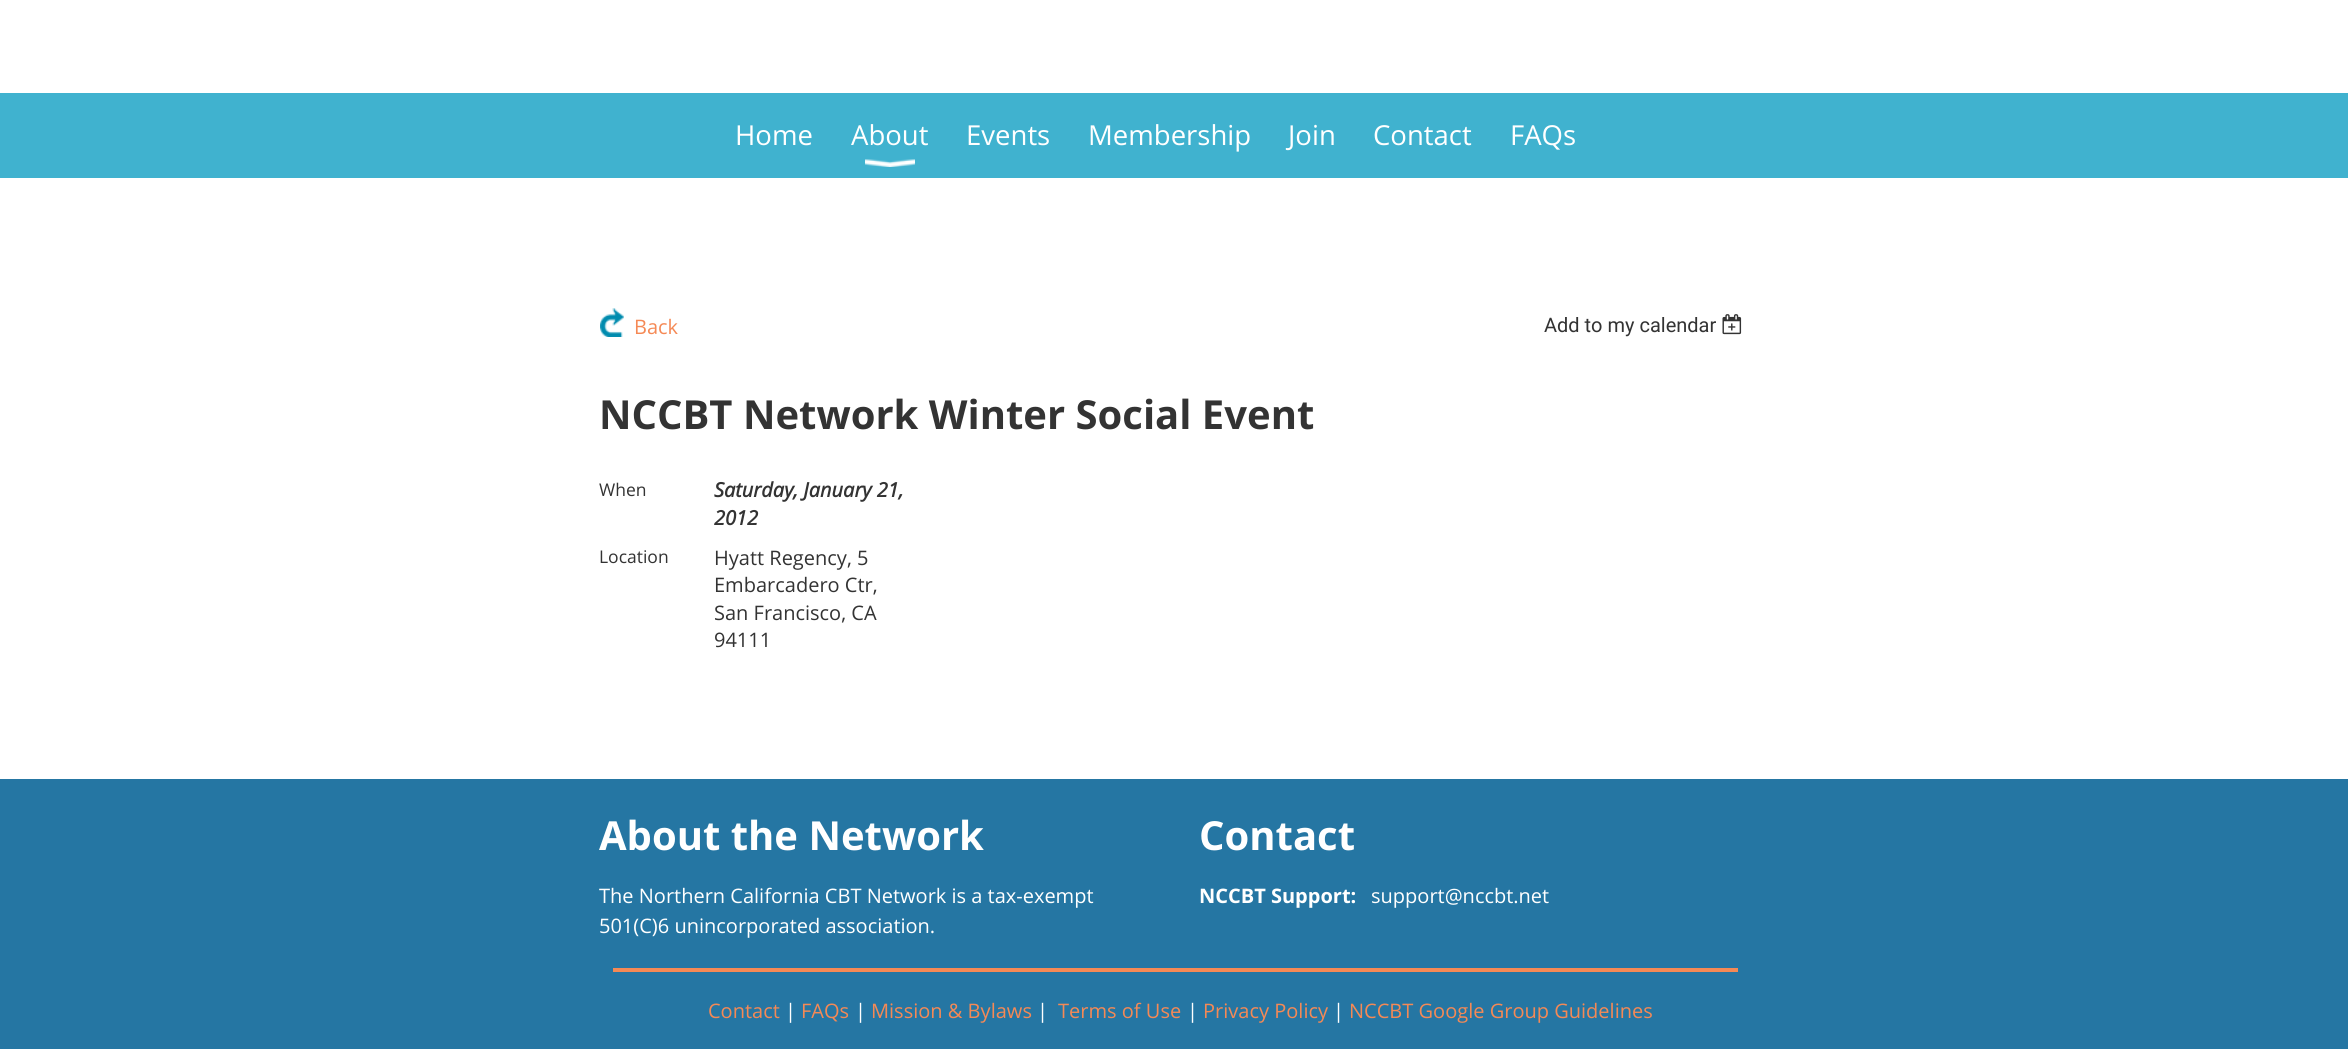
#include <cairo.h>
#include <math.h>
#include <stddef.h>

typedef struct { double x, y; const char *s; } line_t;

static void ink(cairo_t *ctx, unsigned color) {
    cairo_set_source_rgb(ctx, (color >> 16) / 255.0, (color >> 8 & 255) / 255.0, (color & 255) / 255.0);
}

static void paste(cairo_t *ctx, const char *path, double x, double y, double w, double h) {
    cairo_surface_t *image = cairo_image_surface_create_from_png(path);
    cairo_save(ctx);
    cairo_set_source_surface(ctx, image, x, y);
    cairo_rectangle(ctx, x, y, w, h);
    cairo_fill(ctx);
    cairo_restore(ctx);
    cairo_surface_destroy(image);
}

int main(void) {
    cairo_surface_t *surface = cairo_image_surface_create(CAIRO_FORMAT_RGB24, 2348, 1049);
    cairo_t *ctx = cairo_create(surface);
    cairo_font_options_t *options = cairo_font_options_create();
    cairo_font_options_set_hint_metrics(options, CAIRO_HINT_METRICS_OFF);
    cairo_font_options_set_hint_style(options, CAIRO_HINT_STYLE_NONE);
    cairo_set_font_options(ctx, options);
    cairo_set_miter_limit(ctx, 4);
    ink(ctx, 0xFFFFFF);
    cairo_paint(ctx);
    ink(ctx, 0x40B2CF);
    cairo_rectangle(ctx, 0, 93, 2348, 85);
    cairo_fill(ctx);
    cairo_select_font_face(ctx, "Open Sans", CAIRO_FONT_SLANT_NORMAL, CAIRO_FONT_WEIGHT_NORMAL);
    cairo_set_font_size(ctx, 27.5);
    ink(ctx, 0xFFFFFF);
    cairo_move_to(ctx, 735, 145);
    cairo_show_text(ctx, "Home");
    cairo_move_to(ctx, 851, 145);
    cairo_show_text(ctx, "About");
    paste(ctx, "media/1.png", 865, 159, 50, 8);
    {
        static const line_t items[] = {
            {966, 145, "Events"},
            {1088, 145, "Membership"},
            {1288, 145, "Join"},
            {1373, 145, "Contact"},
            {1510, 145, "FAQs"},
        };
        for (size_t i = 0; i < sizeof items / sizeof *items; i++) {
            cairo_move_to(ctx, items[i].x, items[i].y);
            cairo_show_text(ctx, items[i].s);
        }
    }
    paste(ctx, "media/2.png", 600, 308, 24, 29);
    cairo_set_font_size(ctx, 20);
    ink(ctx, 0xF58955);
    cairo_move_to(ctx, 634, 334);
    cairo_show_text(ctx, "Back");
    cairo_select_font_face(ctx, "Roboto", CAIRO_FONT_SLANT_NORMAL, CAIRO_FONT_WEIGHT_NORMAL);
    ink(ctx, 0x333333);
    cairo_move_to(ctx, 1544, 332);
    cairo_show_text(ctx, "Add to my calendar");
    paste(ctx, "media/3.png", 1722, 314, 20, 21);
    cairo_select_font_face(ctx, "Open Sans", CAIRO_FONT_SLANT_NORMAL, CAIRO_FONT_WEIGHT_BOLD);
    cairo_set_font_size(ctx, 40);
    cairo_move_to(ctx, 599, 429);
    cairo_show_text(ctx, "NCCBT Network Winter Social Event");
    cairo_select_font_face(ctx, "Open Sans", CAIRO_FONT_SLANT_NORMAL, CAIRO_FONT_WEIGHT_NORMAL);
    cairo_set_font_size(ctx, 17.5);
    cairo_move_to(ctx, 599, 496);
    cairo_show_text(ctx, "When");
    cairo_select_font_face(ctx, "Open Sans", CAIRO_FONT_SLANT_ITALIC, CAIRO_FONT_WEIGHT_BOLD);
    cairo_set_font_size(ctx, 20);
    cairo_move_to(ctx, 714, 497);
    cairo_show_text(ctx, "Saturday, January 21,");
    cairo_move_to(ctx, 714, 525);
    cairo_show_text(ctx, "2012");
    cairo_select_font_face(ctx, "Open Sans", CAIRO_FONT_SLANT_NORMAL, CAIRO_FONT_WEIGHT_NORMAL);
    cairo_set_font_size(ctx, 17.5);
    cairo_move_to(ctx, 599, 563);
    cairo_show_text(ctx, "Location");
    cairo_set_font_size(ctx, 20);
    {
        static const line_t items[] = {
            {714, 565, "Hyatt Regency, 5"},
            {714, 592, "Embarcadero Ctr,"},
            {714, 620, "San Francisco, CA"},
            {714, 647, "94111"},
        };
        for (size_t i = 0; i < sizeof items / sizeof *items; i++) {
            cairo_move_to(ctx, items[i].x, items[i].y);
            cairo_show_text(ctx, items[i].s);
        }
    }
    ink(ctx, 0x2576A3);
    cairo_rectangle(ctx, 0, 779, 2348, 270);
    cairo_fill(ctx);
    cairo_select_font_face(ctx, "Open Sans", CAIRO_FONT_SLANT_NORMAL, CAIRO_FONT_WEIGHT_BOLD);
    cairo_set_font_size(ctx, 40);
    ink(ctx, 0xFFFFFF);
    cairo_move_to(ctx, 599, 850);
    cairo_show_text(ctx, "About the Network");
    cairo_select_font_face(ctx, "Open Sans", CAIRO_FONT_SLANT_NORMAL, CAIRO_FONT_WEIGHT_NORMAL);
    cairo_set_font_size(ctx, 20);
    cairo_move_to(ctx, 599, 903);
    cairo_show_text(ctx, "The Northern California CBT Network is a tax-exempt");
    cairo_move_to(ctx, 599, 933);
    cairo_show_text(ctx, "501(C)6 unincorporated association.");
    cairo_select_font_face(ctx, "Open Sans", CAIRO_FONT_SLANT_NORMAL, CAIRO_FONT_WEIGHT_BOLD);
    cairo_set_font_size(ctx, 40);
    cairo_move_to(ctx, 1199, 850);
    cairo_show_text(ctx, "Contact");
    cairo_set_font_size(ctx, 20);
    cairo_move_to(ctx, 1199, 903);
    cairo_show_text(ctx, "NCCBT Support:");
    cairo_select_font_face(ctx, "Open Sans", CAIRO_FONT_SLANT_NORMAL, CAIRO_FONT_WEIGHT_NORMAL);
    cairo_move_to(ctx, 1371, 903);
    cairo_show_text(ctx, "support@nccbt.net");
    ink(ctx, 0xF58955);
    cairo_rectangle(ctx, 613, 968, 1125, 4);
    cairo_fill(ctx);
    cairo_move_to(ctx, 708, 1018);
    cairo_show_text(ctx, "Contact");
    ink(ctx, 0xFFFFFF);
    cairo_move_to(ctx, 785, 1018);
    cairo_show_text(ctx, "|");
    ink(ctx, 0xF58955);
    cairo_move_to(ctx, 801, 1018);
    cairo_show_text(ctx, "FAQs");
    ink(ctx, 0xFFFFFF);
    cairo_move_to(ctx, 855, 1018);
    cairo_show_text(ctx, "|");
    ink(ctx, 0xF58955);
    cairo_move_to(ctx, 871, 1018);
    cairo_show_text(ctx, "Mission & Bylaws");
    ink(ctx, 0xFFFFFF);
    cairo_move_to(ctx, 1037, 1018);
    cairo_show_text(ctx, "|");
    ink(ctx, 0xF58955);
    cairo_move_to(ctx, 1058, 1018);
    cairo_show_text(ctx, "Terms of Use");
    ink(ctx, 0xFFFFFF);
    cairo_move_to(ctx, 1187, 1018);
    cairo_show_text(ctx, "|");
    ink(ctx, 0xF58955);
    cairo_move_to(ctx, 1203, 1018);
    cairo_show_text(ctx, "Privacy Policy");
    ink(ctx, 0xFFFFFF);
    cairo_move_to(ctx, 1333, 1018);
    cairo_show_text(ctx, "|");
    ink(ctx, 0xF58955);
    cairo_move_to(ctx, 1349, 1018);
    cairo_show_text(ctx, "NCCBT Google Group Guidelines");
    cairo_surface_write_to_png(surface, "image.png");
    cairo_font_options_destroy(options);
    cairo_destroy(ctx);
    cairo_surface_destroy(surface);
    return 0;
}
